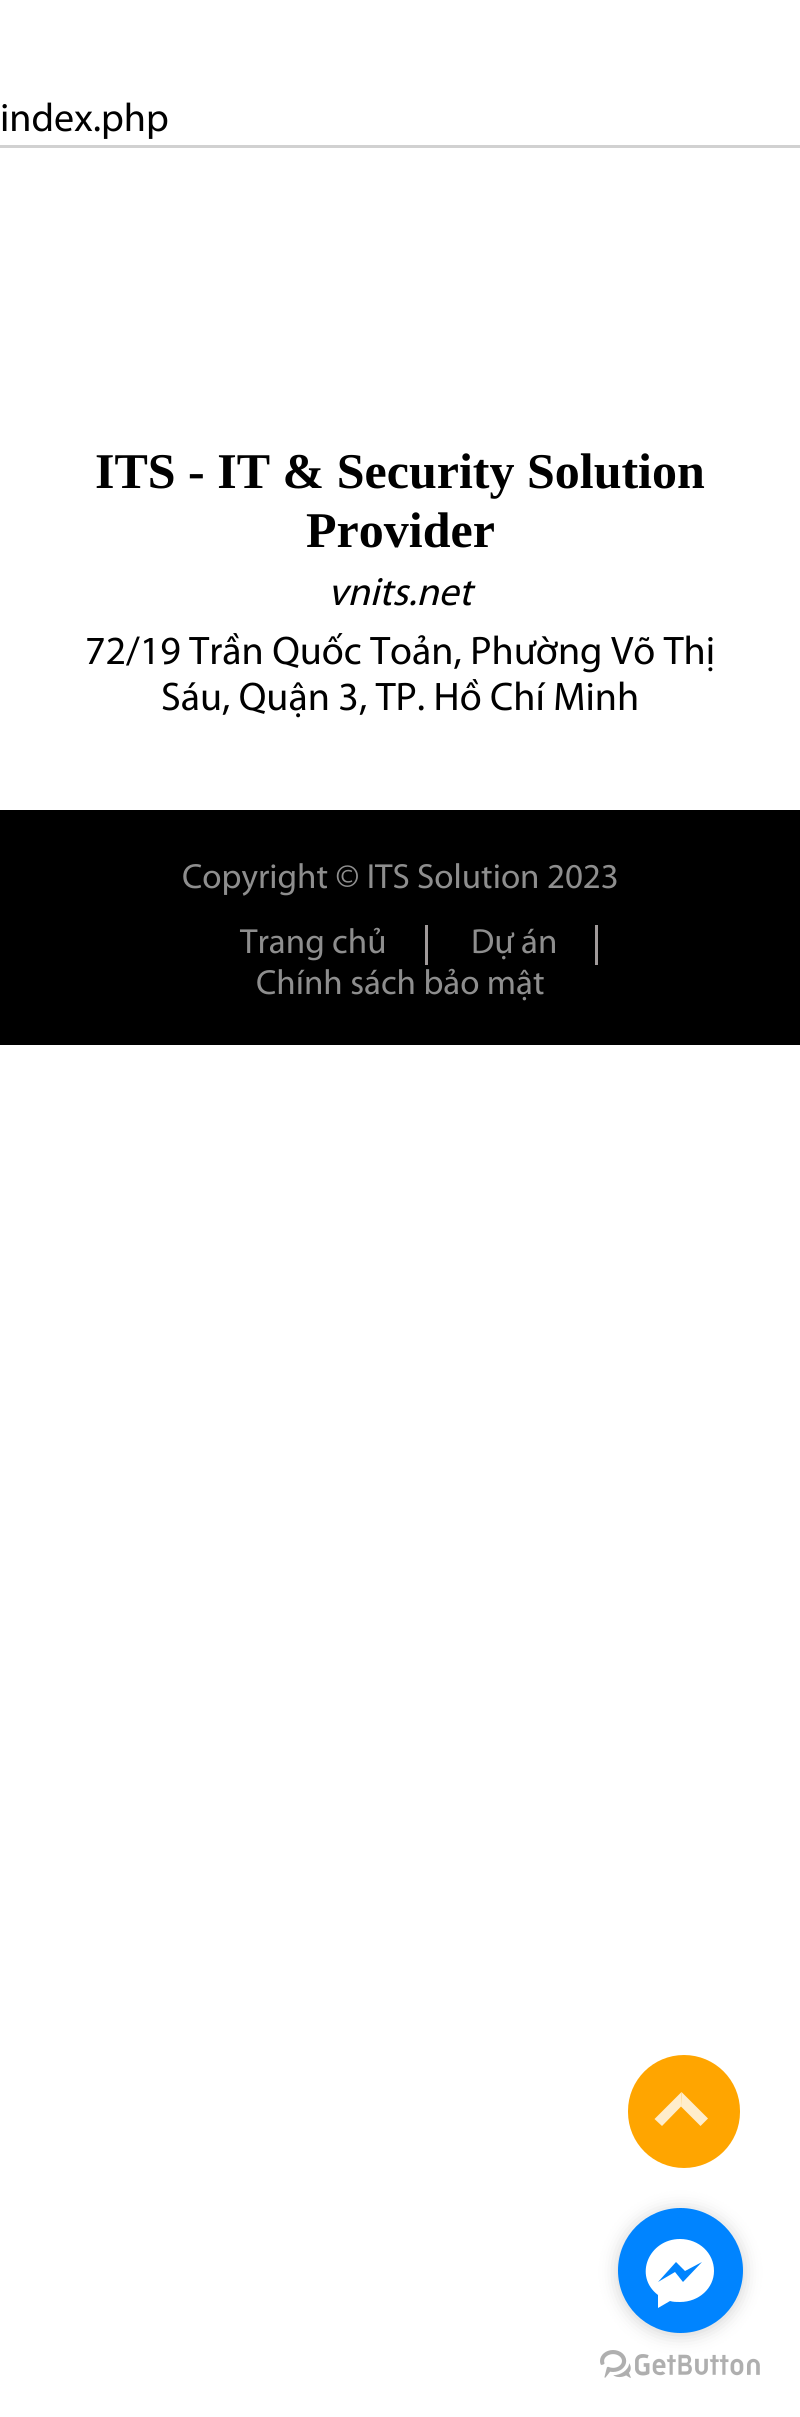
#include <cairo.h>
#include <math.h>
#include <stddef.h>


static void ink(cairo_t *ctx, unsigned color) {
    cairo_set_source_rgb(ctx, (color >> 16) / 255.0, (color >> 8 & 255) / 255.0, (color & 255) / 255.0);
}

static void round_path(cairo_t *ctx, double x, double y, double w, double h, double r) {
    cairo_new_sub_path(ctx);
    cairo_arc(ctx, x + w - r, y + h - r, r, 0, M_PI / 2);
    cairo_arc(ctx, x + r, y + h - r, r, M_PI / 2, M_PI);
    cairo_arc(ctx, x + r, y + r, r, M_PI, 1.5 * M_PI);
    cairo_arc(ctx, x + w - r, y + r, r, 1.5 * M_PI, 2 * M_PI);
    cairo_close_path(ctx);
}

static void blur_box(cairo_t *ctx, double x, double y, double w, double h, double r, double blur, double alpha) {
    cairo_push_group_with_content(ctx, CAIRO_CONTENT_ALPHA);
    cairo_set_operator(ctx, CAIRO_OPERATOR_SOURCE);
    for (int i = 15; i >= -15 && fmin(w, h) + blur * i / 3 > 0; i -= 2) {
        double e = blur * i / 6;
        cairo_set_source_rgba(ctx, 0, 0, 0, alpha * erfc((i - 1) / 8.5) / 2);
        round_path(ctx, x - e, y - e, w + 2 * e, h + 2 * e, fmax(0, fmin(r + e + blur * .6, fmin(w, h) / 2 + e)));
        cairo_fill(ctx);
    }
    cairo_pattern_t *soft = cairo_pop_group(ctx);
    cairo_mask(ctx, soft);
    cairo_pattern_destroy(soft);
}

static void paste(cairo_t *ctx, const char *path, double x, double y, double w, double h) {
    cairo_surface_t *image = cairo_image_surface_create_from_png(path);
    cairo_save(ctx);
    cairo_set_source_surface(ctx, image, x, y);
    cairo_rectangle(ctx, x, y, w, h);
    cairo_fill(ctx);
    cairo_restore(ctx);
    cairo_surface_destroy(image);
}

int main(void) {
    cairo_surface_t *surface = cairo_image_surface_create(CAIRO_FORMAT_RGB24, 800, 2417);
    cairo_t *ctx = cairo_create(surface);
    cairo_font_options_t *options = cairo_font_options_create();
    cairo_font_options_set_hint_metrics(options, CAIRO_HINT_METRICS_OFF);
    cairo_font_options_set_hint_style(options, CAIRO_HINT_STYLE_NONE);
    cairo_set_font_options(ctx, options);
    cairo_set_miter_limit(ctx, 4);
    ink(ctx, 0xFFFFFF);
    cairo_paint(ctx);
    cairo_select_font_face(ctx, "Myriad", CAIRO_FONT_SLANT_NORMAL, CAIRO_FONT_WEIGHT_NORMAL);
    cairo_set_font_size(ctx, 40);
    ink(ctx, 0x000000);
    cairo_move_to(ctx, 0, 131);
    cairo_show_text(ctx, "index.php");
    ink(ctx, 0xD1D1D1);
    cairo_rectangle(ctx, 0, 145, 800, 3);
    cairo_fill(ctx);
    cairo_select_font_face(ctx, "Liberation Serif", CAIRO_FONT_SLANT_NORMAL, CAIRO_FONT_WEIGHT_BOLD);
    cairo_set_font_size(ctx, 50);
    ink(ctx, 0x000000);
    cairo_move_to(ctx, 95, 488);
    cairo_show_text(ctx, "ITS - IT & Security Solution");
    cairo_move_to(ctx, 306, 547);
    cairo_show_text(ctx, "Provider");
    cairo_select_font_face(ctx, "Myriad", CAIRO_FONT_SLANT_ITALIC, CAIRO_FONT_WEIGHT_NORMAL);
    cairo_set_font_size(ctx, 40);
    cairo_move_to(ctx, 328, 605);
    cairo_show_text(ctx, "vnits.net");
    cairo_select_font_face(ctx, "Myriad", CAIRO_FONT_SLANT_NORMAL, CAIRO_FONT_WEIGHT_NORMAL);
    cairo_move_to(ctx, 85, 664);
    cairo_show_text(ctx, "72/19 Trần Quốc Toản, Phường Võ Thị");
    cairo_move_to(ctx, 161, 710);
    cairo_show_text(ctx, "Sáu, Quận 3, TP. Hồ Chí Minh");
    cairo_rectangle(ctx, 0, 810, 800, 235);
    cairo_fill(ctx);
    cairo_set_font_size(ctx, 35);
    ink(ctx, 0x8E8E8E);
    cairo_move_to(ctx, 182, 888);
    cairo_show_text(ctx, "Copyright © ITS Solution 2023");
    ink(ctx, 0xA09A9A);
    cairo_rectangle(ctx, 425, 925, 3, 40);
    cairo_fill(ctx);
    ink(ctx, 0x8E8E8E);
    cairo_move_to(ctx, 240, 953);
    cairo_show_text(ctx, "Trang chủ");
    ink(ctx, 0xA09A9A);
    cairo_rectangle(ctx, 595, 925, 3, 40);
    cairo_fill(ctx);
    ink(ctx, 0x8E8E8E);
    cairo_move_to(ctx, 471, 953);
    cairo_show_text(ctx, "Dự án");
    cairo_move_to(ctx, 256, 994);
    cairo_show_text(ctx, "Chính sách bảo mật");
    ink(ctx, 0xFFA500);
    round_path(ctx, 628, 2055, 112, 113, 56);
    cairo_fill(ctx);
    ink(ctx, 0xFFEDCC);
    cairo_new_path(ctx);
    cairo_move_to(ctx, 681.5, 2092);
    cairo_line_to(ctx, 708, 2118.5);
    cairo_line_to(ctx, 700.5, 2126);
    cairo_line_to(ctx, 681, 2106.5);
    cairo_close_path(ctx);
    cairo_fill(ctx);
    cairo_new_path(ctx);
    cairo_move_to(ctx, 654.5, 2119);
    cairo_line_to(ctx, 681.5, 2092);
    cairo_line_to(ctx, 681, 2106.5);
    cairo_line_to(ctx, 662, 2126);
    cairo_close_path(ctx);
    cairo_fill(ctx);
    paste(ctx, "media/1.png", 600, 2350, 160, 28);
    ink(ctx, 0x888888);
    blur_box(ctx, 618, 2210, 125, 125, 62.5, 9, 0.4);
    ink(ctx, 0x0084FF);
    cairo_arc(ctx, 680.5, 2270.5, 62.5, 0, 2 * M_PI);
    cairo_fill(ctx);
    ink(ctx, 0xFFFFFF);
    cairo_new_path(ctx);
    cairo_move_to(ctx, 680, 2239);
    cairo_curve_to(ctx, 649, 2239, 633, 2276, 658, 2295);
    cairo_line_to(ctx, 658, 2308);
    cairo_line_to(ctx, 670, 2301);
    cairo_curve_to(ctx, 673, 2302, 677, 2302, 680, 2302);
    cairo_curve_to(ctx, 699, 2302, 714, 2288, 714, 2271);
    cairo_curve_to(ctx, 714, 2253, 699, 2239, 680, 2239);
    cairo_close_path(ctx);
    cairo_move_to(ctx, 683, 2282);
    cairo_line_to(ctx, 675, 2272);
    cairo_line_to(ctx, 658, 2282);
    cairo_line_to(ctx, 676, 2262);
    cairo_line_to(ctx, 685, 2271);
    cairo_line_to(ctx, 702, 2262);
    cairo_close_path(ctx);
    cairo_fill(ctx);
    cairo_surface_write_to_png(surface, "image.png");
    cairo_font_options_destroy(options);
    cairo_destroy(ctx);
    cairo_surface_destroy(surface);
    return 0;
}
